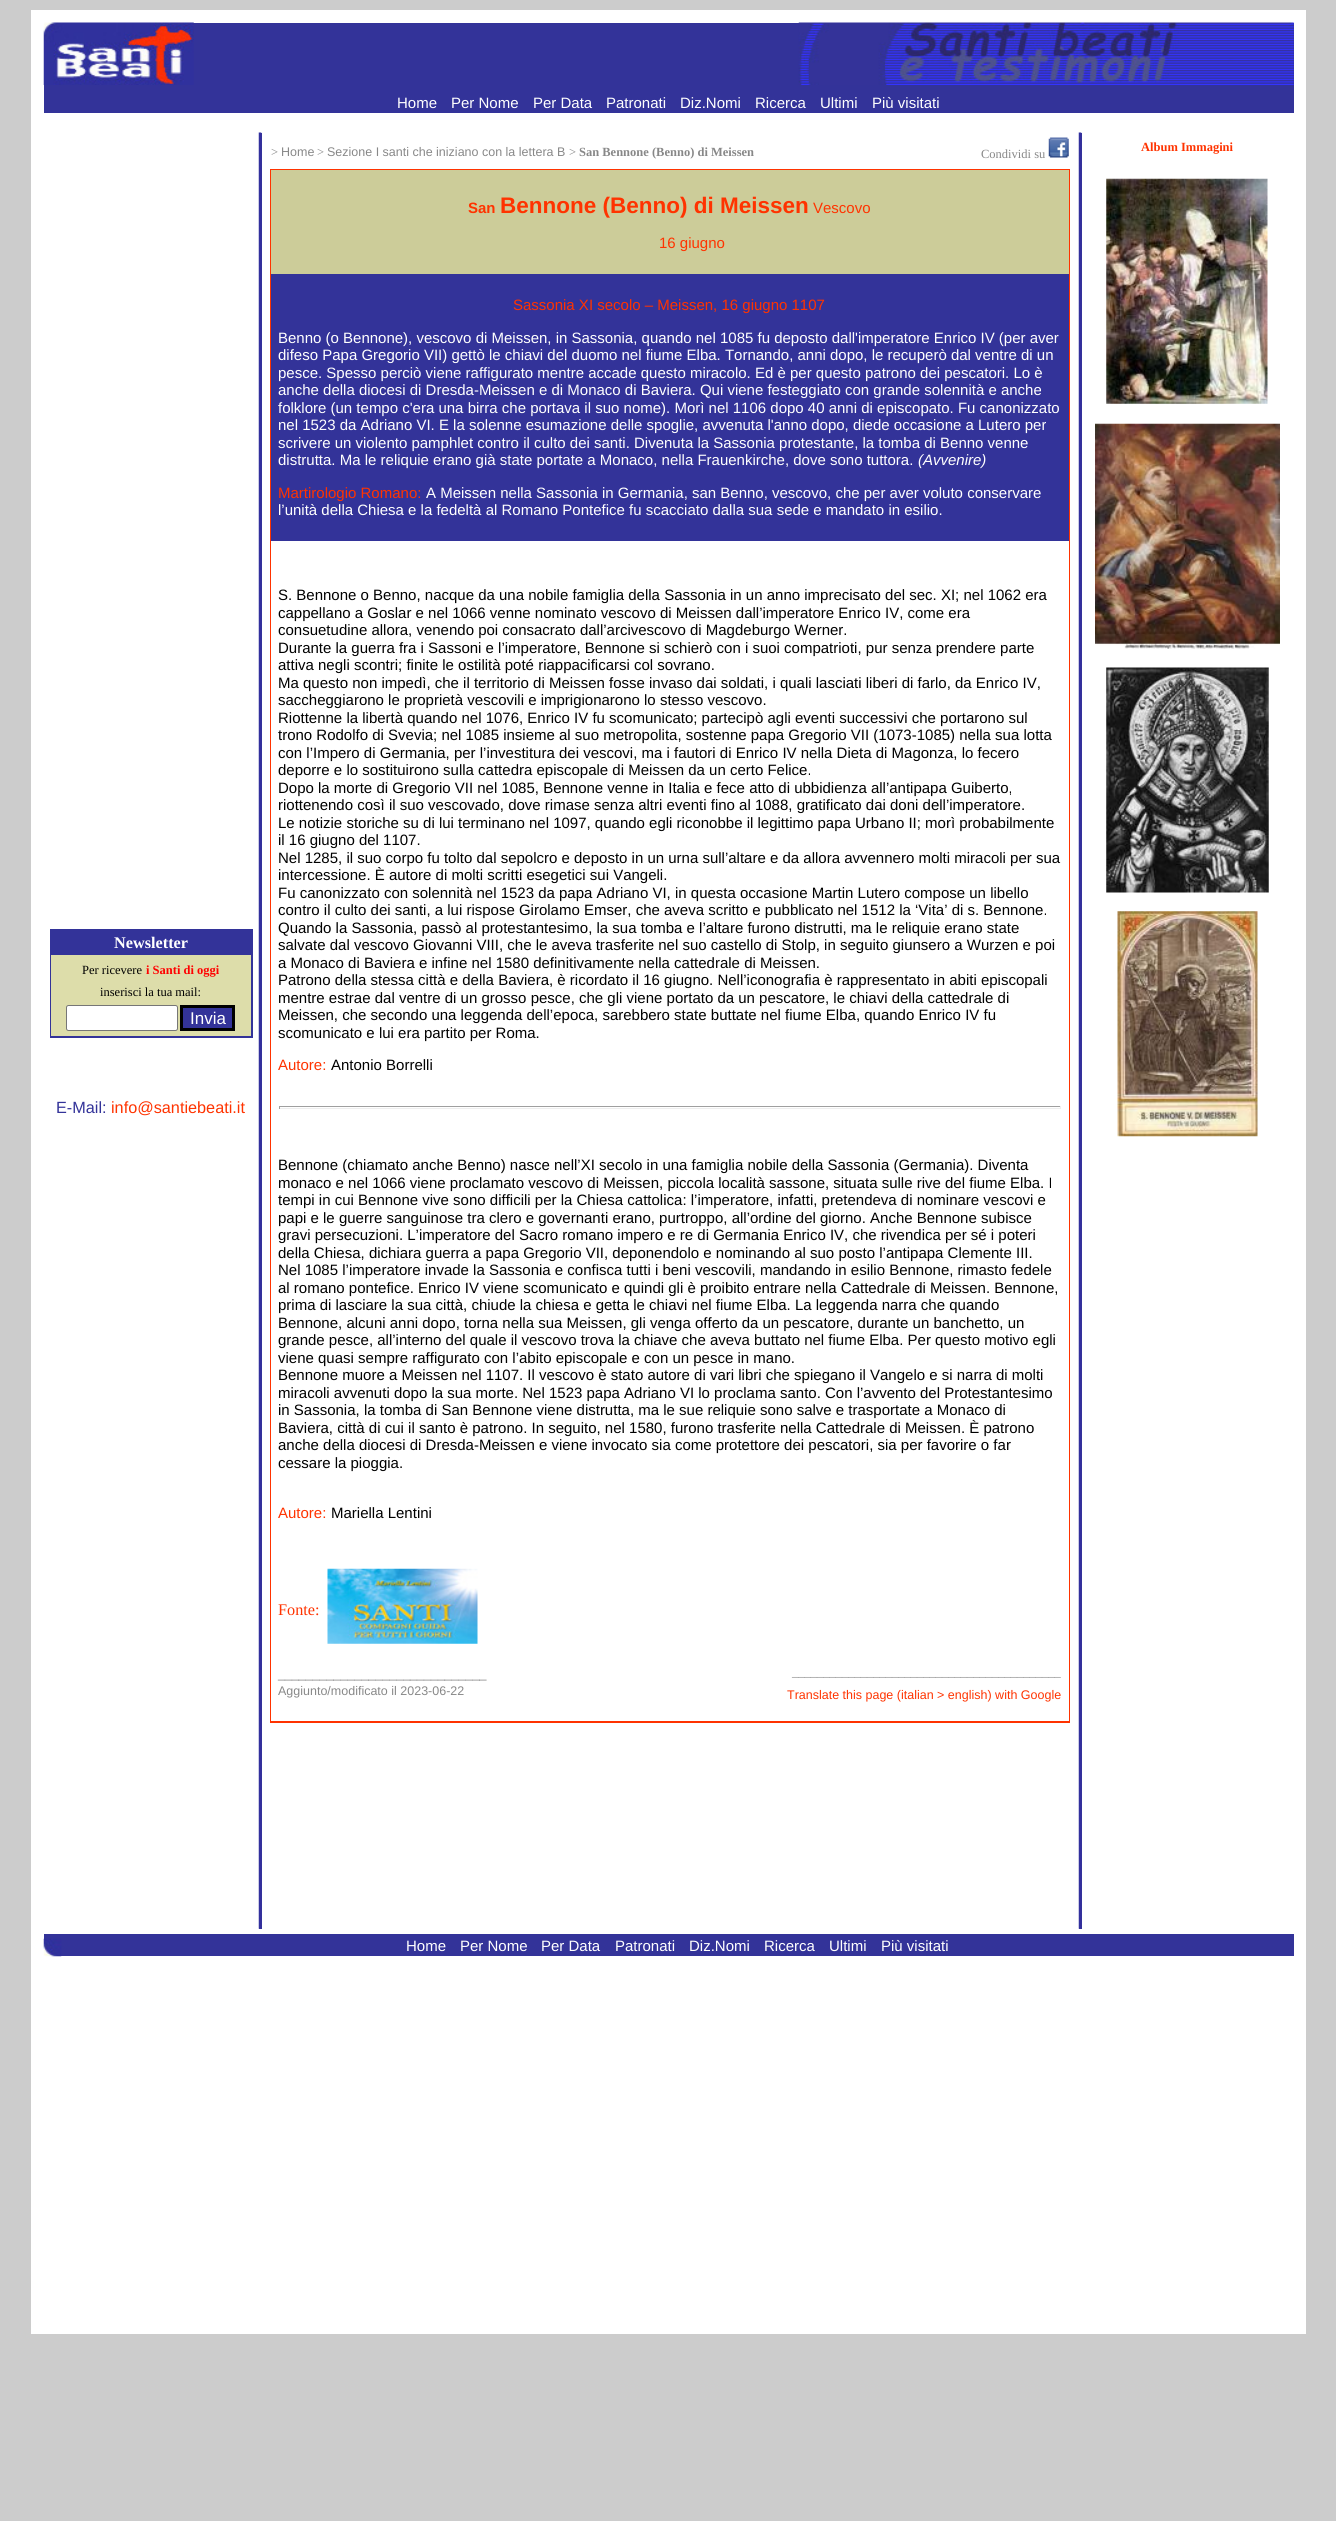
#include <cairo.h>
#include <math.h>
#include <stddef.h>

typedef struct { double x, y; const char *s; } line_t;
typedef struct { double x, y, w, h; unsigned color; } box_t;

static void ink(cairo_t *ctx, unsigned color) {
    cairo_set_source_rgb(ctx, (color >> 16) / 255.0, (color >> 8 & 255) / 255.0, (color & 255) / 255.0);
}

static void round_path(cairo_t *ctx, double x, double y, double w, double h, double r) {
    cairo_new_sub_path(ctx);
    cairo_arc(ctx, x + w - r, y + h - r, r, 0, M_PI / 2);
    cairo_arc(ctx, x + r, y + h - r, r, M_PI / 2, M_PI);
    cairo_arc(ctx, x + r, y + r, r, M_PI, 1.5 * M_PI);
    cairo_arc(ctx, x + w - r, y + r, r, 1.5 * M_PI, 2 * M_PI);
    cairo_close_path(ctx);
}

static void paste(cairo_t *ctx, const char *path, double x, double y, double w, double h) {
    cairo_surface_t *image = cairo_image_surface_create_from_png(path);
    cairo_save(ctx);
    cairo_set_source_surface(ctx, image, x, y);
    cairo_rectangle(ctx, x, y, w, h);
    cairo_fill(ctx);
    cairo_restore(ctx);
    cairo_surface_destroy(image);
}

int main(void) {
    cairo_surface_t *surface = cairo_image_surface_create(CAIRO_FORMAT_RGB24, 1336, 2521);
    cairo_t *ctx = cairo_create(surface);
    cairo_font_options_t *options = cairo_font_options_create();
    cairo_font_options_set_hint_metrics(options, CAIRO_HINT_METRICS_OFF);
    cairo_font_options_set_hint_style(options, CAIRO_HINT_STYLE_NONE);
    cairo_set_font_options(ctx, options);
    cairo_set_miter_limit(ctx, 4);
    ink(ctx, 0xCCCCCC);
    cairo_paint(ctx);
    ink(ctx, 0xFFFFFF);
    cairo_rectangle(ctx, 31, 10, 1275, 2324);
    cairo_fill(ctx);
    ink(ctx, 0x333399);
    cairo_rectangle(ctx, 44, 23, 1250, 90);
    cairo_fill(ctx);
    paste(ctx, "media/1.png", 43, 22, 151, 63);
    paste(ctx, "media/2.png", 798, 22, 496, 63);
    cairo_select_font_face(ctx, "Liberation Sans", CAIRO_FONT_SLANT_NORMAL, CAIRO_FONT_WEIGHT_NORMAL);
    cairo_set_font_size(ctx, 15);
    ink(ctx, 0xFFFFFF);
    {
        static const line_t items[] = {
            {397, 108, "Home"},
            {451, 108, "Per Nome"},
            {533, 108, "Per Data"},
            {606, 108, "Patronati"},
            {680, 108, "Diz.Nomi"},
            {755, 108, "Ricerca"},
            {820, 108, "Ultimi"},
            {872, 108, "Più visitati"},
        };
        for (size_t i = 0; i < sizeof items / sizeof *items; i++) {
            cairo_move_to(ctx, items[i].x, items[i].y);
            cairo_show_text(ctx, items[i].s);
        }
    }
    ink(ctx, 0x333399);
    cairo_rectangle(ctx, 50, 929, 203, 109);
    cairo_fill(ctx);
    cairo_select_font_face(ctx, "Liberation Serif", CAIRO_FONT_SLANT_NORMAL, CAIRO_FONT_WEIGHT_BOLD);
    cairo_set_font_size(ctx, 16.25);
    ink(ctx, 0xFFFFFF);
    cairo_move_to(ctx, 114, 948);
    cairo_show_text(ctx, "Newsletter");
    ink(ctx, 0xDDDDAA);
    cairo_rectangle(ctx, 51, 955, 200, 81);
    cairo_fill(ctx);
    cairo_select_font_face(ctx, "Liberation Serif", CAIRO_FONT_SLANT_NORMAL, CAIRO_FONT_WEIGHT_NORMAL);
    cairo_set_font_size(ctx, 12.5);
    ink(ctx, 0x000000);
    cairo_move_to(ctx, 82, 974);
    cairo_show_text(ctx, "Per ricevere");
    cairo_select_font_face(ctx, "Liberation Serif", CAIRO_FONT_SLANT_NORMAL, CAIRO_FONT_WEIGHT_BOLD);
    ink(ctx, 0xFF0000);
    cairo_move_to(ctx, 146, 974);
    cairo_show_text(ctx, "i Santi di oggi");
    cairo_select_font_face(ctx, "Liberation Serif", CAIRO_FONT_SLANT_NORMAL, CAIRO_FONT_WEIGHT_NORMAL);
    ink(ctx, 0x000000);
    cairo_move_to(ctx, 100, 996);
    cairo_show_text(ctx, "inserisci la tua mail:");
    ink(ctx, 0xFFFFFF);
    round_path(ctx, 66.5, 1005.5, 111, 25, 2);
    cairo_fill_preserve(ctx);
    ink(ctx, 0x767676);
    cairo_set_line_width(ctx, 1);
    cairo_stroke(ctx);
    ink(ctx, 0x333399);
    cairo_rectangle(ctx, 181.5, 1006.5, 52, 23);
    cairo_fill_preserve(ctx);
    ink(ctx, 0x000000);
    cairo_set_line_width(ctx, 3);
    cairo_stroke(ctx);
    cairo_select_font_face(ctx, "Liberation Sans", CAIRO_FONT_SLANT_NORMAL, CAIRO_FONT_WEIGHT_NORMAL);
    cairo_set_font_size(ctx, 17);
    ink(ctx, 0xFFFFFF);
    cairo_move_to(ctx, 190, 1024);
    cairo_show_text(ctx, "Invia");
    cairo_set_font_size(ctx, 16.25);
    ink(ctx, 0x333399);
    cairo_move_to(ctx, 56, 1113);
    cairo_show_text(ctx, "E-Mail:");
    ink(ctx, 0xFF3300);
    cairo_move_to(ctx, 111, 1113);
    cairo_show_text(ctx, "info@santiebeati.it");
    ink(ctx, 0x333399);
    cairo_rectangle(ctx, 259, 133, 3, 1796);
    cairo_fill(ctx);
    paste(ctx, "media/3.png", 258, 132, 4, 1797);
    cairo_select_font_face(ctx, "Liberation Serif", CAIRO_FONT_SLANT_NORMAL, CAIRO_FONT_WEIGHT_NORMAL);
    cairo_set_font_size(ctx, 12.5);
    ink(ctx, 0x888888);
    cairo_move_to(ctx, 271, 156);
    cairo_show_text(ctx, ">");
    cairo_select_font_face(ctx, "Liberation Sans", CAIRO_FONT_SLANT_NORMAL, CAIRO_FONT_WEIGHT_NORMAL);
    cairo_move_to(ctx, 281, 156);
    cairo_show_text(ctx, "Home");
    cairo_select_font_face(ctx, "Liberation Serif", CAIRO_FONT_SLANT_NORMAL, CAIRO_FONT_WEIGHT_NORMAL);
    cairo_move_to(ctx, 317, 156);
    cairo_show_text(ctx, ">");
    cairo_select_font_face(ctx, "Liberation Sans", CAIRO_FONT_SLANT_NORMAL, CAIRO_FONT_WEIGHT_NORMAL);
    cairo_move_to(ctx, 327, 156);
    cairo_show_text(ctx, "Sezione I santi che iniziano con la lettera B");
    cairo_select_font_face(ctx, "Liberation Serif", CAIRO_FONT_SLANT_NORMAL, CAIRO_FONT_WEIGHT_NORMAL);
    cairo_move_to(ctx, 569, 156);
    cairo_show_text(ctx, ">");
    cairo_select_font_face(ctx, "Liberation Serif", CAIRO_FONT_SLANT_NORMAL, CAIRO_FONT_WEIGHT_BOLD);
    cairo_move_to(ctx, 579, 156);
    cairo_show_text(ctx, "San Bennone (Benno) di Meissen");
    cairo_select_font_face(ctx, "Liberation Serif", CAIRO_FONT_SLANT_NORMAL, CAIRO_FONT_WEIGHT_NORMAL);
    cairo_move_to(ctx, 981, 158);
    cairo_show_text(ctx, "Condividi su");
    paste(ctx, "media/4.png", 1048, 137, 21, 21);
    {
        static const box_t items[] = {
            {270, 169, 800, 1554, 0xFF3300},
            {271, 541, 798, 1180, 0xFFFFFF},
            {271, 170, 798, 104, 0xCCCC99},
        };
        for (size_t i = 0; i < sizeof items / sizeof *items; i++) {
            ink(ctx, items[i].color);
            cairo_rectangle(ctx, items[i].x, items[i].y, items[i].w, items[i].h);
            cairo_fill(ctx);
        }
    }
    cairo_select_font_face(ctx, "Liberation Sans", CAIRO_FONT_SLANT_NORMAL, CAIRO_FONT_WEIGHT_BOLD);
    cairo_set_font_size(ctx, 15);
    ink(ctx, 0xFF3300);
    cairo_move_to(ctx, 468, 213);
    cairo_show_text(ctx, "San");
    cairo_set_font_size(ctx, 22.5);
    cairo_move_to(ctx, 500, 213);
    cairo_show_text(ctx, "Bennone (Benno) di Meissen");
    cairo_select_font_face(ctx, "Liberation Sans", CAIRO_FONT_SLANT_NORMAL, CAIRO_FONT_WEIGHT_NORMAL);
    cairo_set_font_size(ctx, 15);
    cairo_move_to(ctx, 813, 213);
    cairo_show_text(ctx, "Vescovo");
    cairo_move_to(ctx, 659, 248);
    cairo_show_text(ctx, "16 giugno");
    ink(ctx, 0x333399);
    cairo_rectangle(ctx, 271, 274, 798, 267);
    cairo_fill(ctx);
    ink(ctx, 0xFF3300);
    cairo_move_to(ctx, 513, 310);
    cairo_show_text(ctx, "Sassonia XI secolo – Meissen, 16 giugno 1107");
    ink(ctx, 0xFFFFFF);
    {
        static const line_t items[] = {
            {278, 343, "Benno (o Bennone), vescovo di Meissen, in Sassonia, quando nel 1085 fu deposto dall'imperatore Enrico IV (per aver"},
            {278, 360, "difeso Papa Gregorio VII) gettò le chiavi del duomo nel fiume Elba. Tornando, anni dopo, le recuperò dal ventre di un"},
            {278, 378, "pesce. Spesso perciò viene raffigurato mentre accade questo miracolo. Ed è per questo patrono dei pescatori. Lo è"},
            {278, 395, "anche della diocesi di Dresda-Meissen e di Monaco di Baviera. Qui viene festeggiato con grande solennità e anche"},
            {278, 413, "folklore (un tempo c'era una birra che portava il suo nome). Morì nel 1106 dopo 40 anni di episcopato. Fu canonizzato"},
            {278, 430, "nel 1523 da Adriano VI. E la solenne esumazione delle spoglie, avvenuta l'anno dopo, diede occasione a Lutero per"},
            {278, 448, "scrivere un violento pamphlet contro il culto dei santi. Divenuta la Sassonia protestante, la tomba di Benno venne"},
            {278, 465, "distrutta. Ma le reliquie erano già state portate a Monaco, nella Frauenkirche, dove sono tuttora."},
        };
        for (size_t i = 0; i < sizeof items / sizeof *items; i++) {
            cairo_move_to(ctx, items[i].x, items[i].y);
            cairo_show_text(ctx, items[i].s);
        }
    }
    cairo_select_font_face(ctx, "Liberation Sans", CAIRO_FONT_SLANT_ITALIC, CAIRO_FONT_WEIGHT_NORMAL);
    cairo_move_to(ctx, 918, 465);
    cairo_show_text(ctx, "(Avvenire)");
    cairo_select_font_face(ctx, "Liberation Sans", CAIRO_FONT_SLANT_NORMAL, CAIRO_FONT_WEIGHT_NORMAL);
    ink(ctx, 0xFF3300);
    cairo_move_to(ctx, 278, 498);
    cairo_show_text(ctx, "Martirologio Romano:");
    ink(ctx, 0xFFFFFF);
    cairo_move_to(ctx, 426, 498);
    cairo_show_text(ctx, "A Meissen nella Sassonia in Germania, san Benno, vescovo, che per aver voluto conservare");
    cairo_move_to(ctx, 278, 515);
    cairo_show_text(ctx, "l’unità della Chiesa e la fedeltà al Romano Pontefice fu scacciato dalla sua sede e mandato in esilio.");
    ink(ctx, 0x000000);
    {
        static const line_t items[] = {
            {278, 600, "S. Bennone o Benno, nacque da una nobile famiglia della Sassonia in un anno imprecisato del sec. XI; nel 1062 era"},
            {278, 618, "cappellano a Goslar e nel 1066 venne nominato vescovo di Meissen dall’imperatore Enrico IV, come era"},
            {278, 635, "consuetudine allora, venendo poi consacrato dall’arcivescovo di Magdeburgo Werner."},
            {278, 653, "Durante la guerra fra i Sassoni e l’imperatore, Bennone si schierò con i suoi compatrioti, pur senza prendere parte"},
            {278, 670, "attiva negli scontri; finite le ostilità poté riappacificarsi col sovrano."},
            {278, 688, "Ma questo non impedì, che il territorio di Meissen fosse invaso dai soldati, i quali lasciati liberi di farlo, da Enrico IV,"},
            {278, 705, "saccheggiarono le proprietà vescovili e imprigionarono lo stesso vescovo."},
            {278, 723, "Riottenne la libertà quando nel 1076, Enrico IV fu scomunicato; partecipò agli eventi successivi che portarono sul"},
            {278, 740, "trono Rodolfo di Svevia; nel 1085 insieme al suo metropolita, sostenne papa Gregorio VII (1073-1085) nella sua lotta"},
            {278, 758, "con l’Impero di Germania, per l’investitura dei vescovi, ma i fautori di Enrico IV nella Dieta di Magonza, lo fecero"},
            {278, 775, "deporre e lo sostituirono sulla cattedra episcopale di Meissen da un certo Felice."},
            {278, 793, "Dopo la morte di Gregorio VII nel 1085, Bennone venne in Italia e fece atto di ubbidienza all’antipapa Guiberto,"},
            {278, 810, "riottenendo così il suo vescovado, dove rimase senza altri eventi fino al 1088, gratificato dai doni dell’imperatore."},
            {278, 828, "Le notizie storiche su di lui terminano nel 1097, quando egli riconobbe il legittimo papa Urbano II; morì probabilmente"},
            {278, 845, "il 16 giugno del 1107."},
            {278, 863, "Nel 1285, il suo corpo fu tolto dal sepolcro e deposto in un urna sull’altare e da allora avvennero molti miracoli per sua"},
            {278, 880, "intercessione. È autore di molti scritti esegetici sui Vangeli."},
            {278, 898, "Fu canonizzato con solennità nel 1523 da papa Adriano VI, in questa occasione Martin Lutero compose un libello"},
            {278, 915, "contro il culto dei santi, a lui rispose Girolamo Emser, che aveva scritto e pubblicato nel 1512 la ‘Vita’ di s. Bennone."},
            {278, 933, "Quando la Sassonia, passò al protestantesimo, la sua tomba e l’altare furono distrutti, ma le reliquie erano state"},
            {278, 950, "salvate dal vescovo Giovanni VIII, che le aveva trasferite nel suo castello di Stolp, in seguito giunsero a Wurzen e poi"},
            {278, 968, "a Monaco di Baviera e infine nel 1580 definitivamente nella cattedrale di Meissen."},
            {278, 985, "Patrono della stessa città e della Baviera, è ricordato il 16 giugno. Nell’iconografia è rappresentato in abiti episcopali"},
            {278, 1003, "mentre estrae dal ventre di un grosso pesce, che gli viene portato da un pescatore, le chiavi della cattedrale di"},
            {278, 1020, "Meissen, che secondo una leggenda dell’epoca, sarebbero state buttate nel fiume Elba, quando Enrico IV fu"},
            {278, 1038, "scomunicato e lui era partito per Roma."},
        };
        for (size_t i = 0; i < sizeof items / sizeof *items; i++) {
            cairo_move_to(ctx, items[i].x, items[i].y);
            cairo_show_text(ctx, items[i].s);
        }
    }
    ink(ctx, 0xFF3300);
    cairo_move_to(ctx, 278, 1070);
    cairo_show_text(ctx, "Autore:");
    ink(ctx, 0x000000);
    cairo_move_to(ctx, 331, 1070);
    cairo_show_text(ctx, "Antonio Borrelli");
    {
        static const box_t items[] = {
            {279, 1106, 782, 1, 0x9F9F9F},
            {1060, 1106, 1, 3, 0xEEEEEE},
            {279, 1108, 782, 1, 0xEEEEEE},
            {279, 1106, 1, 3, 0x9F9F9F},
        };
        for (size_t i = 0; i < sizeof items / sizeof *items; i++) {
            ink(ctx, items[i].color);
            cairo_rectangle(ctx, items[i].x, items[i].y, items[i].w, items[i].h);
            cairo_fill(ctx);
        }
    }
    ink(ctx, 0x000000);
    {
        static const line_t items[] = {
            {278, 1170, "Bennone (chiamato anche Benno) nasce nell’XI secolo in una famiglia nobile della Sassonia (Germania). Diventa"},
            {278, 1188, "monaco e nel 1066 viene proclamato vescovo di Meissen, piccola località sassone, situata sulle rive del fiume Elba. I"},
            {278, 1205, "tempi in cui Bennone vive sono difficili per la Chiesa cattolica: l’imperatore, infatti, pretendeva di nominare vescovi e"},
            {278, 1223, "papi e le guerre sanguinose tra clero e governanti erano, purtroppo, all’ordine del giorno. Anche Bennone subisce"},
            {278, 1240, "gravi persecuzioni. L’imperatore del Sacro romano impero e re di Germania Enrico IV, che rivendica per sé i poteri"},
            {278, 1258, "della Chiesa, dichiara guerra a papa Gregorio VII, deponendolo e nominando al suo posto l’antipapa Clemente III."},
            {278, 1275, "Nel 1085 l’imperatore invade la Sassonia e confisca tutti i beni vescovili, mandando in esilio Bennone, rimasto fedele"},
            {278, 1293, "al romano pontefice. Enrico IV viene scomunicato e quindi gli è proibito entrare nella Cattedrale di Meissen. Bennone,"},
            {278, 1310, "prima di lasciare la sua città, chiude la chiesa e getta le chiavi nel fiume Elba. La leggenda narra che quando"},
            {278, 1328, "Bennone, alcuni anni dopo, torna nella sua Meissen, gli venga offerto da un pescatore, durante un banchetto, un"},
            {278, 1345, "grande pesce, all’interno del quale il vescovo trova la chiave che aveva buttato nel fiume Elba. Per questo motivo egli"},
            {278, 1363, "viene quasi sempre raffigurato con l’abito episcopale e con un pesce in mano."},
            {278, 1380, "Bennone muore a Meissen nel 1107. Il vescovo è stato autore di vari libri che spiegano il Vangelo e si narra di molti"},
            {278, 1398, "miracoli avvenuti dopo la sua morte. Nel 1523 papa Adriano VI lo proclama santo. Con l’avvento del Protestantesimo"},
            {278, 1415, "in Sassonia, la tomba di San Bennone viene distrutta, ma le sue reliquie sono salve e trasportate a Monaco di"},
            {278, 1433, "Baviera, città di cui il santo è patrono. In seguito, nel 1580, furono trasferite nella Cattedrale di Meissen. È patrono"},
            {278, 1450, "anche della diocesi di Dresda-Meissen e viene invocato sia come protettore dei pescatori, sia per favorire o far"},
            {278, 1468, "cessare la pioggia."},
        };
        for (size_t i = 0; i < sizeof items / sizeof *items; i++) {
            cairo_move_to(ctx, items[i].x, items[i].y);
            cairo_show_text(ctx, items[i].s);
        }
    }
    ink(ctx, 0xFF3300);
    cairo_move_to(ctx, 278, 1518);
    cairo_show_text(ctx, "Autore:");
    ink(ctx, 0x000000);
    cairo_move_to(ctx, 331, 1518);
    cairo_show_text(ctx, "Mariella Lentini");
    cairo_select_font_face(ctx, "Liberation Serif", CAIRO_FONT_SLANT_NORMAL, CAIRO_FONT_WEIGHT_NORMAL);
    cairo_set_font_size(ctx, 16.25);
    ink(ctx, 0xFF3300);
    cairo_move_to(ctx, 278, 1615);
    cairo_show_text(ctx, "Fonte:");
    paste(ctx, "media/5.png", 327, 1568, 151, 76);
    cairo_select_font_face(ctx, "Liberation Sans", CAIRO_FONT_SLANT_NORMAL, CAIRO_FONT_WEIGHT_NORMAL);
    cairo_set_font_size(ctx, 12.5);
    ink(ctx, 0x888888);
    cairo_move_to(ctx, 278, 1678);
    cairo_show_text(ctx, "______________________________");
    cairo_move_to(ctx, 278, 1695);
    cairo_show_text(ctx, "Aggiunto/modificato il 2023-06-22");
    cairo_select_font_face(ctx, "Liberation Serif", CAIRO_FONT_SLANT_NORMAL, CAIRO_FONT_WEIGHT_NORMAL);
    cairo_move_to(ctx, 792, 1676);
    cairo_show_text(ctx, "___________________________________________");
    cairo_select_font_face(ctx, "Liberation Sans", CAIRO_FONT_SLANT_NORMAL, CAIRO_FONT_WEIGHT_NORMAL);
    ink(ctx, 0xFF3300);
    cairo_move_to(ctx, 787, 1699);
    cairo_show_text(ctx, "Translate this page (italian > english) with Google");
    ink(ctx, 0x333399);
    cairo_rectangle(ctx, 1079, 133, 3, 1796);
    cairo_fill(ctx);
    paste(ctx, "media/3.png", 1078, 132, 4, 1797);
    cairo_select_font_face(ctx, "Liberation Serif", CAIRO_FONT_SLANT_NORMAL, CAIRO_FONT_WEIGHT_BOLD);
    ink(ctx, 0xFF3300);
    cairo_move_to(ctx, 1141, 151);
    cairo_show_text(ctx, "Album Immagini");
    paste(ctx, "media/6.png", 1106, 178, 162, 226);
    paste(ctx, "media/7.png", 1095, 423, 185, 226);
    paste(ctx, "media/8.png", 1106, 667, 163, 226);
    paste(ctx, "media/9.png", 1117, 911, 141, 226);
    ink(ctx, 0x333399);
    cairo_rectangle(ctx, 44, 1934, 1250, 22);
    cairo_fill(ctx);
    paste(ctx, "media/10.png", 43, 1938, 19, 19);
    cairo_select_font_face(ctx, "Liberation Sans", CAIRO_FONT_SLANT_NORMAL, CAIRO_FONT_WEIGHT_NORMAL);
    cairo_set_font_size(ctx, 15);
    ink(ctx, 0xFFFFFF);
    {
        static const line_t items[] = {
            {406, 1951, "Home"},
            {460, 1951, "Per Nome"},
            {541, 1951, "Per Data"},
            {615, 1951, "Patronati"},
            {689, 1951, "Diz.Nomi"},
            {764, 1951, "Ricerca"},
            {829, 1951, "Ultimi"},
            {881, 1951, "Più visitati"},
        };
        for (size_t i = 0; i < sizeof items / sizeof *items; i++) {
            cairo_move_to(ctx, items[i].x, items[i].y);
            cairo_show_text(ctx, items[i].s);
        }
    }
    cairo_surface_write_to_png(surface, "image.png");
    cairo_font_options_destroy(options);
    cairo_destroy(ctx);
    cairo_surface_destroy(surface);
    return 0;
}
